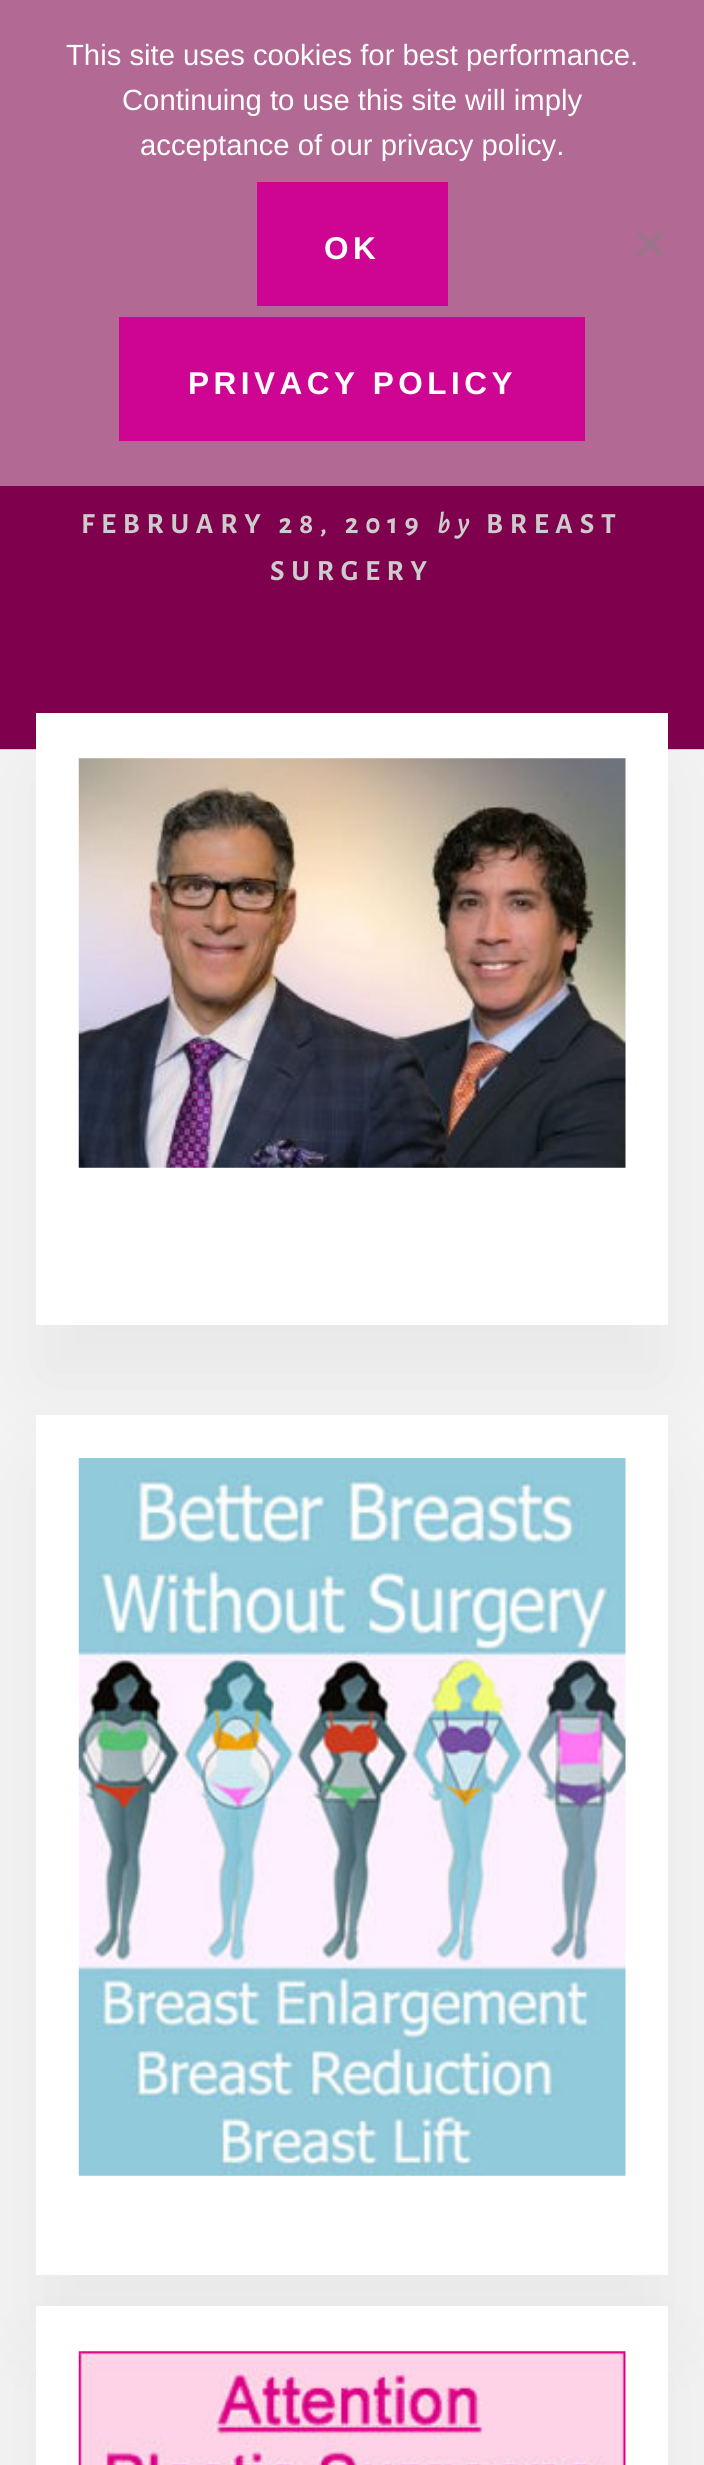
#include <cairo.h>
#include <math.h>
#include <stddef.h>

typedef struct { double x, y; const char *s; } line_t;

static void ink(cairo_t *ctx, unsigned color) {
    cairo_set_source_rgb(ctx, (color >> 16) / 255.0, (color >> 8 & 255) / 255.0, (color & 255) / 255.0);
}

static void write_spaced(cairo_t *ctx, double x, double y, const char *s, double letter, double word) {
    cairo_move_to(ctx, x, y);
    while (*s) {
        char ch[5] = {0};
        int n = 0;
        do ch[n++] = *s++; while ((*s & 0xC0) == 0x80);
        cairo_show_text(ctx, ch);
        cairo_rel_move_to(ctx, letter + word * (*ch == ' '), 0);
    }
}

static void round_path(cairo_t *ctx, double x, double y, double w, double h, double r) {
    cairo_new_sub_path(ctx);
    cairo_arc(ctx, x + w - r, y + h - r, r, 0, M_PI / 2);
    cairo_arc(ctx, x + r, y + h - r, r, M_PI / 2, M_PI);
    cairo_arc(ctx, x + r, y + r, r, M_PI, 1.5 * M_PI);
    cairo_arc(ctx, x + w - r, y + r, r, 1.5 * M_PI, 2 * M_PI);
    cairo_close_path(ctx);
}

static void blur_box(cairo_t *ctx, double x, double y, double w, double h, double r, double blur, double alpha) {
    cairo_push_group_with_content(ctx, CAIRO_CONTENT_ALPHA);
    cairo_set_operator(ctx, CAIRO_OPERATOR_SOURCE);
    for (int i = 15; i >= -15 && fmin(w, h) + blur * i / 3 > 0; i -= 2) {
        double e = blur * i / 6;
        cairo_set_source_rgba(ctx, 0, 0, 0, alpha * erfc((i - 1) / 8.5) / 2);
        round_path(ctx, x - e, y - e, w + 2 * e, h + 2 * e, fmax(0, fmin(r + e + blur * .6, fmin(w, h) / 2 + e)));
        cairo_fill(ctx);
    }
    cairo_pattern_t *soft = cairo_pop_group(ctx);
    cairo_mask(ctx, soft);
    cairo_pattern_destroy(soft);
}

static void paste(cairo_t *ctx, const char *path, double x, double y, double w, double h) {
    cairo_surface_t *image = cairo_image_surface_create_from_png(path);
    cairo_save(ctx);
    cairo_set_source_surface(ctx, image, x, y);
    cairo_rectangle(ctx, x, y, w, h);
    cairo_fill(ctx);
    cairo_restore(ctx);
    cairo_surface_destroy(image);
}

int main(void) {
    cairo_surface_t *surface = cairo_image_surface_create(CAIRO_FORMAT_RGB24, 704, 2465);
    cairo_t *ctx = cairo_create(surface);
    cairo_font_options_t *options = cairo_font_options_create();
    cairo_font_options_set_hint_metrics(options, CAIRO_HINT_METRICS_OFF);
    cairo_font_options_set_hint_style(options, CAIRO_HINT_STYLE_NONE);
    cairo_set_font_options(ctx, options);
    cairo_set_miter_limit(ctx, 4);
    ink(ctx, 0xF4F4F4);
    cairo_paint(ctx);
    ink(ctx, 0xB26994);
    cairo_rectangle(ctx, 0, 0, 704, 486);
    cairo_fill(ctx);
    cairo_select_font_face(ctx, "Liberation Sans", CAIRO_FONT_SLANT_NORMAL, CAIRO_FONT_WEIGHT_NORMAL);
    cairo_set_font_size(ctx, 29.25);
    ink(ctx, 0xFFFFFF);
    {
        static const line_t items[] = {
            {66, 65, "This site uses cookies for best performance."},
            {122, 110, "Continuing to use this site will imply"},
            {140, 155, "acceptance of our privacy policy."},
        };
        for (size_t i = 0; i < sizeof items / sizeof *items; i++) {
            cairo_move_to(ctx, items[i].x, items[i].y);
            cairo_show_text(ctx, items[i].s);
        }
    }
    ink(ctx, 0xCE0593);
    cairo_rectangle(ctx, 257, 182, 191, 124);
    cairo_fill(ctx);
    cairo_select_font_face(ctx, "Liberation Sans", CAIRO_FONT_SLANT_NORMAL, CAIRO_FONT_WEIGHT_BOLD);
    cairo_set_font_size(ctx, 31.5);
    ink(ctx, 0xFFFFFF);
    write_spaced(ctx, 324, 259, "OK", 4.5, 0);
    ink(ctx, 0xCE0593);
    cairo_rectangle(ctx, 119, 317, 466, 124);
    cairo_fill(ctx);
    ink(ctx, 0xFFFFFF);
    write_spaced(ctx, 188, 394, "PRIVACY POLICY", 4.5, 0);
    ink(ctx, 0x99758A);
    cairo_new_path(ctx);
    cairo_move_to(ctx, 660.5, 230.5);
    cairo_line_to(ctx, 664, 234);
    cairo_line_to(ctx, 640, 257.5);
    cairo_line_to(ctx, 636.5, 254.5);
    cairo_close_path(ctx);
    cairo_fill(ctx);
    cairo_new_path(ctx);
    cairo_move_to(ctx, 636.5, 234);
    cairo_line_to(ctx, 640, 230.5);
    cairo_line_to(ctx, 664, 254.5);
    cairo_line_to(ctx, 660.5, 257.5);
    cairo_close_path(ctx);
    cairo_fill(ctx);
    paste(ctx, "media/1.png", 0, 486, 704, 264);
    cairo_select_font_face(ctx, "Alegreya Sans", CAIRO_FONT_SLANT_NORMAL, CAIRO_FONT_WEIGHT_BOLD);
    cairo_set_font_size(ctx, 29.25);
    ink(ctx, 0xCCCCCC);
    write_spaced(ctx, 81, 533, "FEBRUARY 28, 2019", 6.75, 0);
    cairo_select_font_face(ctx, "Alegreya Sans", CAIRO_FONT_SLANT_ITALIC, CAIRO_FONT_WEIGHT_BOLD);
    write_spaced(ctx, 437, 533, "by", 6.75, 0);
    cairo_select_font_face(ctx, "Alegreya Sans", CAIRO_FONT_SLANT_NORMAL, CAIRO_FONT_WEIGHT_BOLD);
    write_spaced(ctx, 486, 533, "BREAST", 6.75, 0);
    write_spaced(ctx, 270, 580, "SURGERY", 6.75, 0);
    ink(ctx, 0x000000);
    blur_box(ctx, 36, 770, 632, 612, 0, 45, 0.05);
    ink(ctx, 0xFFFFFF);
    cairo_rectangle(ctx, 36, 713, 632, 612);
    cairo_fill(ctx);
    paste(ctx, "media/2.png", 78, 758, 548, 410);
    ink(ctx, 0x000000);
    blur_box(ctx, 36, 1472, 632, 859, 0, 45, 0.05);
    ink(ctx, 0xFFFFFF);
    cairo_rectangle(ctx, 36, 1415, 632, 860);
    cairo_fill(ctx);
    paste(ctx, "media/3.png", 78, 1458, 548, 718);
    ink(ctx, 0x000000);
    blur_box(ctx, 36, 2363, 632, 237, 0, 45, 0.05);
    ink(ctx, 0xFFFFFF);
    cairo_rectangle(ctx, 36, 2306, 632, 159);
    cairo_fill(ctx);
    paste(ctx, "media/4.png", 78, 2351, 548, 114);
    cairo_surface_write_to_png(surface, "image.png");
    cairo_font_options_destroy(options);
    cairo_destroy(ctx);
    cairo_surface_destroy(surface);
    return 0;
}
